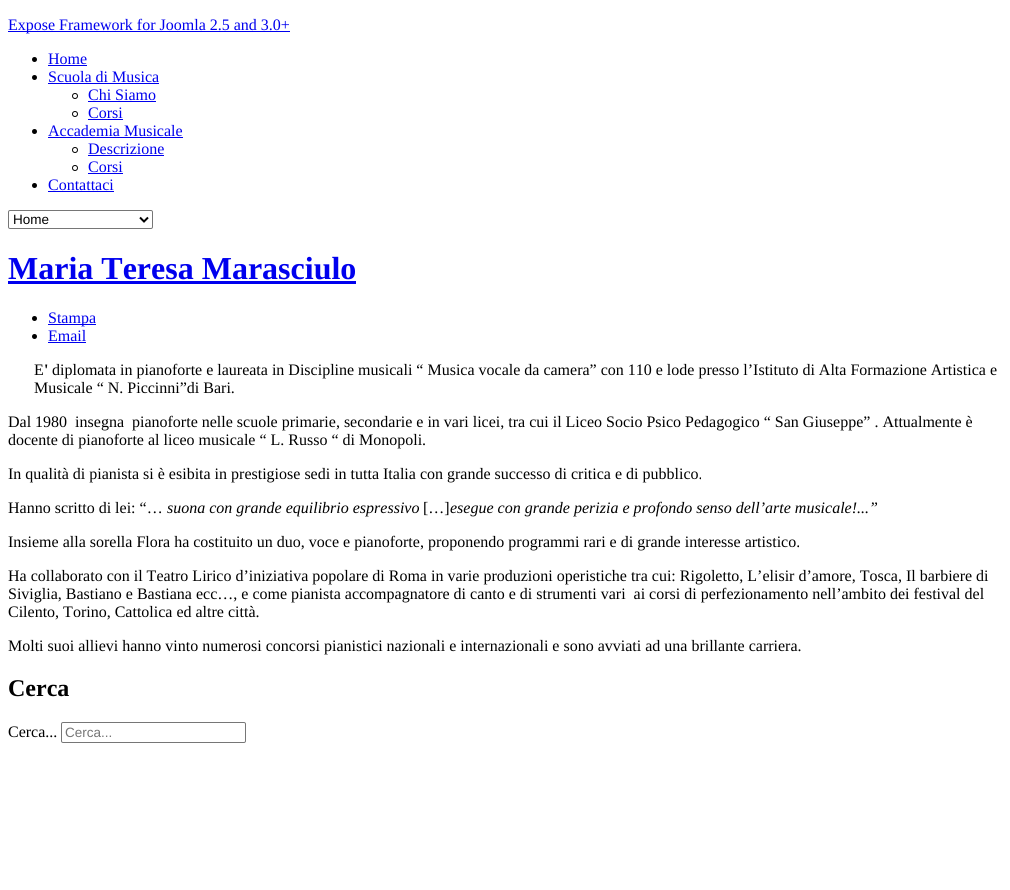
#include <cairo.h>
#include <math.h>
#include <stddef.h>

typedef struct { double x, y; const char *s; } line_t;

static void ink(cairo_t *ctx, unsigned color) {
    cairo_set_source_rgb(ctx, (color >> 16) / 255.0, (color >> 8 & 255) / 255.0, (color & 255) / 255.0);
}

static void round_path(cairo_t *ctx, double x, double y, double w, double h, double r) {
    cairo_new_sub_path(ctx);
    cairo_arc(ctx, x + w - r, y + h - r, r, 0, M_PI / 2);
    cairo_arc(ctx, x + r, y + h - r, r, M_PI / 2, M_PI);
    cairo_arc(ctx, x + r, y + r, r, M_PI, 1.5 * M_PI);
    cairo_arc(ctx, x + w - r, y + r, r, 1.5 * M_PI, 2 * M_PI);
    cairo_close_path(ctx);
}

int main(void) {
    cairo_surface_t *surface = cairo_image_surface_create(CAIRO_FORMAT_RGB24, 1010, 890);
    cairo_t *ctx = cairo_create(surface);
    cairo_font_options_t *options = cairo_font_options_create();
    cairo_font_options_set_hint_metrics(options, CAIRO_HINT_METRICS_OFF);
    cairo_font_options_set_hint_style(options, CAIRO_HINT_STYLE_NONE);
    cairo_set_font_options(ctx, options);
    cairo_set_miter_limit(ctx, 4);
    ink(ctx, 0xFFFFFF);
    cairo_paint(ctx);
    ink(ctx, 0x0000EE);
    cairo_rectangle(ctx, 8, 31, 282, 1);
    cairo_fill(ctx);
    cairo_select_font_face(ctx, "Liberation Serif", CAIRO_FONT_SLANT_NORMAL, CAIRO_FONT_WEIGHT_NORMAL);
    cairo_set_font_size(ctx, 16);
    cairo_move_to(ctx, 8, 30);
    cairo_show_text(ctx, "Expose Framework for Joomla 2.5 and 3.0+");
    ink(ctx, 0x000000);
    cairo_new_path(ctx);
    cairo_arc(ctx, 34.5, 59.5, 2.5, 0, 2 * M_PI);
    cairo_fill(ctx);
    ink(ctx, 0x0000EE);
    cairo_move_to(ctx, 48, 64);
    cairo_show_text(ctx, "Home");
    cairo_rectangle(ctx, 48, 65, 39, 1);
    cairo_fill(ctx);
    ink(ctx, 0x000000);
    cairo_arc(ctx, 34.5, 77.5, 2.5, 0, 2 * M_PI);
    cairo_fill(ctx);
    ink(ctx, 0x0000EE);
    cairo_move_to(ctx, 48, 82);
    cairo_show_text(ctx, "Scuola di Musica");
    cairo_rectangle(ctx, 48, 83, 111, 1);
    cairo_fill(ctx);
    cairo_arc(ctx, 75, 96, 2.5, 0, 2 * M_PI);
    ink(ctx, 0x000000);
    cairo_set_line_width(ctx, 1);
    cairo_stroke(ctx);
    ink(ctx, 0x0000EE);
    cairo_move_to(ctx, 88, 100);
    cairo_show_text(ctx, "Chi Siamo");
    cairo_rectangle(ctx, 88, 101, 68, 1);
    cairo_fill(ctx);
    cairo_arc(ctx, 75, 114, 2.5, 0, 2 * M_PI);
    ink(ctx, 0x000000);
    cairo_stroke(ctx);
    ink(ctx, 0x0000EE);
    cairo_move_to(ctx, 88, 118);
    cairo_show_text(ctx, "Corsi");
    cairo_rectangle(ctx, 88, 119, 35, 1);
    cairo_fill(ctx);
    ink(ctx, 0x000000);
    cairo_arc(ctx, 34.5, 131.5, 2.5, 0, 2 * M_PI);
    cairo_fill(ctx);
    ink(ctx, 0x0000EE);
    cairo_move_to(ctx, 48, 136);
    cairo_show_text(ctx, "Accademia Musicale");
    cairo_rectangle(ctx, 48, 137, 135, 1);
    cairo_fill(ctx);
    cairo_arc(ctx, 75, 150, 2.5, 0, 2 * M_PI);
    ink(ctx, 0x000000);
    cairo_stroke(ctx);
    ink(ctx, 0x0000EE);
    cairo_move_to(ctx, 88, 154);
    cairo_show_text(ctx, "Descrizione");
    cairo_rectangle(ctx, 88, 155, 76, 1);
    cairo_fill(ctx);
    cairo_arc(ctx, 75, 168, 2.5, 0, 2 * M_PI);
    ink(ctx, 0x000000);
    cairo_stroke(ctx);
    ink(ctx, 0x0000EE);
    cairo_move_to(ctx, 88, 172);
    cairo_show_text(ctx, "Corsi");
    cairo_rectangle(ctx, 88, 173, 35, 1);
    cairo_fill(ctx);
    ink(ctx, 0x000000);
    cairo_arc(ctx, 34.5, 185.5, 2.5, 0, 2 * M_PI);
    cairo_fill(ctx);
    ink(ctx, 0x0000EE);
    cairo_move_to(ctx, 48, 190);
    cairo_show_text(ctx, "Contattaci");
    cairo_rectangle(ctx, 48, 191, 66, 1);
    cairo_fill(ctx);
    round_path(ctx, 8.5, 210.5, 144, 18, 1.5);
    ink(ctx, 0x767676);
    cairo_stroke(ctx);
    cairo_new_path(ctx);
    cairo_move_to(ctx, 140, 217.5);
    cairo_line_to(ctx, 144, 221.5);
    cairo_line_to(ctx, 148, 217.5);
    ink(ctx, 0x000000);
    cairo_set_line_width(ctx, 2);
    cairo_stroke(ctx);
    cairo_select_font_face(ctx, "Liberation Sans", CAIRO_FONT_SLANT_NORMAL, CAIRO_FONT_WEIGHT_NORMAL);
    cairo_set_font_size(ctx, 13.5);
    cairo_move_to(ctx, 13, 224);
    cairo_show_text(ctx, "Home");
    cairo_select_font_face(ctx, "Liberation Serif", CAIRO_FONT_SLANT_NORMAL, CAIRO_FONT_WEIGHT_BOLD);
    cairo_set_font_size(ctx, 32);
    ink(ctx, 0x0000EE);
    cairo_move_to(ctx, 8, 279);
    cairo_show_text(ctx, "Maria Teresa Marasciulo");
    cairo_rectangle(ctx, 8, 281, 348, 3);
    cairo_fill(ctx);
    ink(ctx, 0x000000);
    cairo_arc(ctx, 34.5, 318.5, 2.5, 0, 2 * M_PI);
    cairo_fill(ctx);
    ink(ctx, 0x0000EE);
    cairo_rectangle(ctx, 48, 324, 48, 1);
    cairo_fill(ctx);
    cairo_select_font_face(ctx, "Liberation Serif", CAIRO_FONT_SLANT_NORMAL, CAIRO_FONT_WEIGHT_NORMAL);
    cairo_set_font_size(ctx, 16);
    cairo_move_to(ctx, 48, 323);
    cairo_show_text(ctx, "Stampa");
    ink(ctx, 0x000000);
    cairo_new_path(ctx);
    cairo_arc(ctx, 34.5, 336.5, 2.5, 0, 2 * M_PI);
    cairo_fill(ctx);
    ink(ctx, 0x0000EE);
    cairo_move_to(ctx, 48, 341);
    cairo_show_text(ctx, "Email");
    cairo_rectangle(ctx, 48, 342, 38, 1);
    cairo_fill(ctx);
    ink(ctx, 0x000000);
    cairo_move_to(ctx, 34, 375);
    cairo_show_text(ctx, "E");
    cairo_select_font_face(ctx, "Liberation Serif", CAIRO_FONT_SLANT_NORMAL, CAIRO_FONT_WEIGHT_BOLD);
    cairo_move_to(ctx, 44, 375);
    cairo_show_text(ctx, "'");
    cairo_select_font_face(ctx, "Liberation Serif", CAIRO_FONT_SLANT_NORMAL, CAIRO_FONT_WEIGHT_NORMAL);
    {
        static const line_t items[] = {
            {52, 375, "diplomata in pianoforte e laureata in Discipline musicali “ Musica vocale da camera” con 110 e lode presso l’Istituto di Alta Formazione Artistica e"},
            {34, 393, "Musicale “ N. Piccinni”di Bari."},
            {8, 427, "Dal 1980  insegna  pianoforte nelle scuole primarie, secondarie e in vari licei, tra cui il Liceo Socio Psico Pedagogico “ San Giuseppe” . Attualmente è"},
            {8, 445, "docente di pianoforte al liceo musicale “ L. Russo “ di Monopoli."},
            {8, 479, "In qualità di pianista si è esibita in prestigiose sedi in tutta Italia con grande successo di critica e di pubblico."},
            {8, 513, "Hanno scritto di lei: “…"},
        };
        for (size_t i = 0; i < sizeof items / sizeof *items; i++) {
            cairo_move_to(ctx, items[i].x, items[i].y);
            cairo_show_text(ctx, items[i].s);
        }
    }
    cairo_select_font_face(ctx, "Liberation Serif", CAIRO_FONT_SLANT_ITALIC, CAIRO_FONT_WEIGHT_NORMAL);
    cairo_move_to(ctx, 167, 513);
    cairo_show_text(ctx, "suona con grande equilibrio espressivo");
    cairo_select_font_face(ctx, "Liberation Serif", CAIRO_FONT_SLANT_NORMAL, CAIRO_FONT_WEIGHT_NORMAL);
    cairo_move_to(ctx, 423, 513);
    cairo_show_text(ctx, "[…]");
    cairo_select_font_face(ctx, "Liberation Serif", CAIRO_FONT_SLANT_ITALIC, CAIRO_FONT_WEIGHT_NORMAL);
    cairo_move_to(ctx, 450, 513);
    cairo_show_text(ctx, "esegue con grande perizia e profondo senso dell’arte musicale!...”");
    cairo_select_font_face(ctx, "Liberation Serif", CAIRO_FONT_SLANT_NORMAL, CAIRO_FONT_WEIGHT_NORMAL);
    {
        static const line_t items[] = {
            {8, 547, "Insieme alla sorella Flora ha costituito un duo, voce e pianoforte, proponendo programmi rari e di grande interesse artistico."},
            {8, 581, "Ha collaborato con il Teatro Lirico d’iniziativa popolare di Roma in varie produzioni operistiche tra cui: Rigoletto, L’elisir d’amore, Tosca, Il barbiere di"},
            {8, 599, "Siviglia, Bastiano e Bastiana ecc…, e come pianista accompagnatore di canto e di strumenti vari  ai corsi di perfezionamento nell’ambito dei festival del"},
            {8, 617, "Cilento, Torino, Cattolica ed altre città."},
            {8, 651, "Molti suoi allievi hanno vinto numerosi concorsi pianistici nazionali e internazionali e sono avviati ad una brillante carriera."},
        };
        for (size_t i = 0; i < sizeof items / sizeof *items; i++) {
            cairo_move_to(ctx, items[i].x, items[i].y);
            cairo_show_text(ctx, items[i].s);
        }
    }
    cairo_select_font_face(ctx, "Liberation Serif", CAIRO_FONT_SLANT_NORMAL, CAIRO_FONT_WEIGHT_BOLD);
    cairo_set_font_size(ctx, 24);
    cairo_move_to(ctx, 8, 696);
    cairo_show_text(ctx, "Cerca");
    cairo_select_font_face(ctx, "Liberation Serif", CAIRO_FONT_SLANT_NORMAL, CAIRO_FONT_WEIGHT_NORMAL);
    cairo_set_font_size(ctx, 16);
    cairo_move_to(ctx, 8, 737);
    cairo_show_text(ctx, "Cerca...");
    round_path(ctx, 61.5, 722.5, 184, 20, 1.5);
    ink(ctx, 0x767676);
    cairo_set_line_width(ctx, 1);
    cairo_stroke(ctx);
    cairo_select_font_face(ctx, "Liberation Sans", CAIRO_FONT_SLANT_NORMAL, CAIRO_FONT_WEIGHT_NORMAL);
    cairo_set_font_size(ctx, 13.5);
    ink(ctx, 0x757575);
    cairo_move_to(ctx, 65, 737);
    cairo_show_text(ctx, "Cerca...");
    cairo_surface_write_to_png(surface, "image.png");
    cairo_font_options_destroy(options);
    cairo_destroy(ctx);
    cairo_surface_destroy(surface);
    return 0;
}
